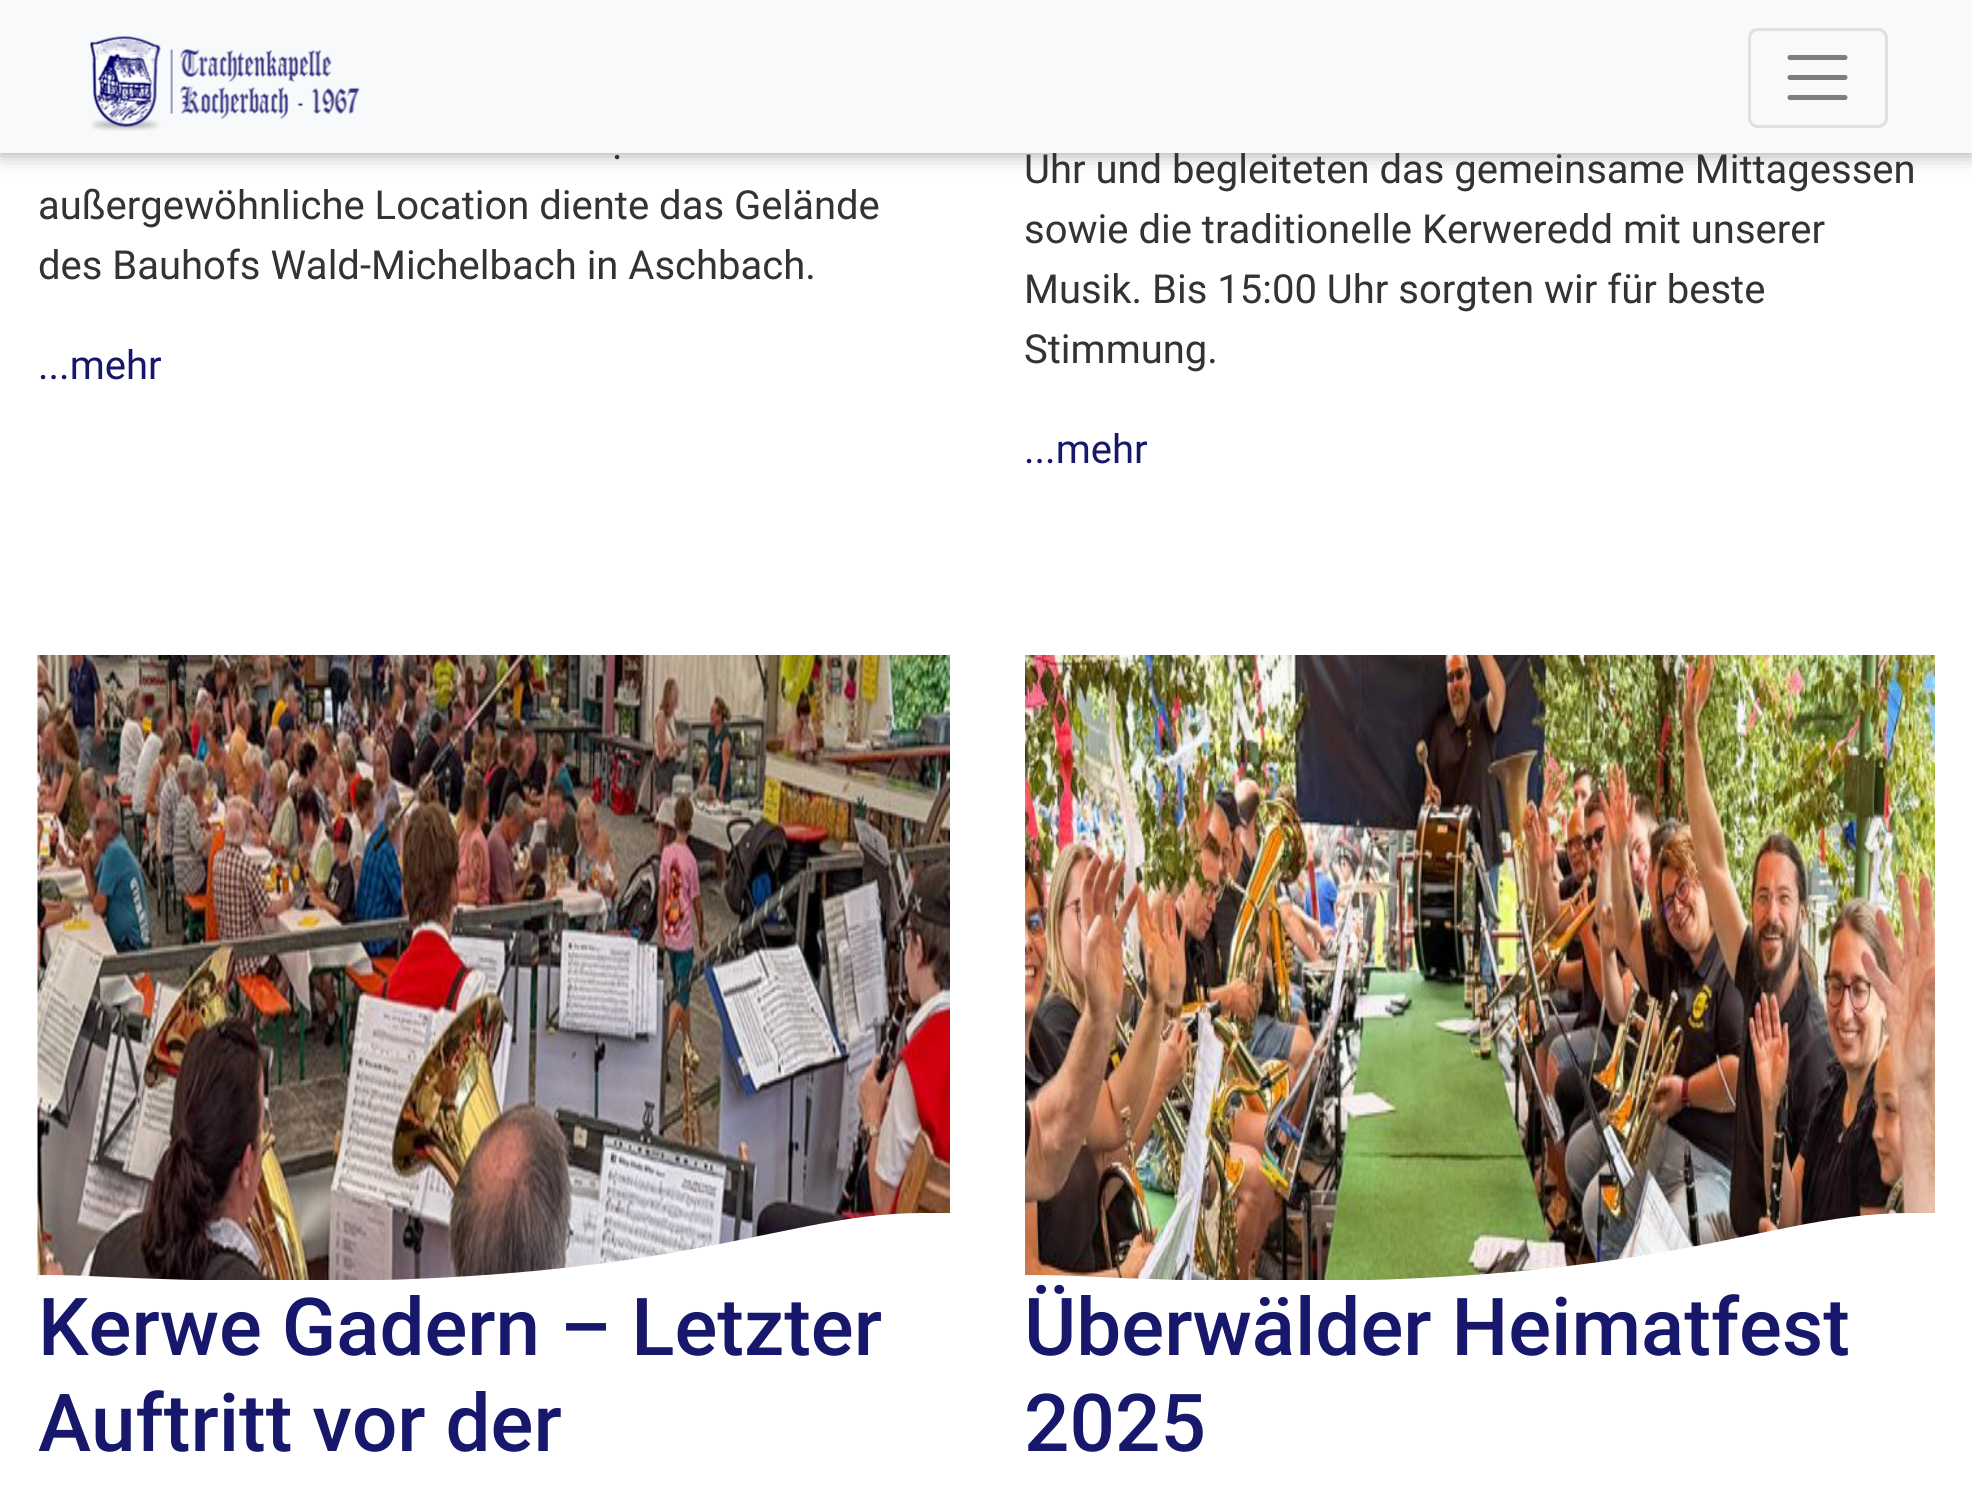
#include <cairo.h>
#include <math.h>
#include <stddef.h>

typedef struct { double x, y; const char *s; } line_t;

static void ink(cairo_t *ctx, unsigned color) {
    cairo_set_source_rgb(ctx, (color >> 16) / 255.0, (color >> 8 & 255) / 255.0, (color & 255) / 255.0);
}

static void round_path(cairo_t *ctx, double x, double y, double w, double h, double r) {
    cairo_new_sub_path(ctx);
    cairo_arc(ctx, x + w - r, y + h - r, r, 0, M_PI / 2);
    cairo_arc(ctx, x + r, y + h - r, r, M_PI / 2, M_PI);
    cairo_arc(ctx, x + r, y + r, r, M_PI, 1.5 * M_PI);
    cairo_arc(ctx, x + w - r, y + r, r, 1.5 * M_PI, 2 * M_PI);
    cairo_close_path(ctx);
}

static void blur_box(cairo_t *ctx, double x, double y, double w, double h, double r, double blur, double alpha) {
    cairo_push_group_with_content(ctx, CAIRO_CONTENT_ALPHA);
    cairo_set_operator(ctx, CAIRO_OPERATOR_SOURCE);
    for (int i = 15; i >= -15 && fmin(w, h) + blur * i / 3 > 0; i -= 2) {
        double e = blur * i / 6;
        cairo_set_source_rgba(ctx, 0, 0, 0, alpha * erfc((i - 1) / 8.5) / 2);
        round_path(ctx, x - e, y - e, w + 2 * e, h + 2 * e, fmax(0, fmin(r + e + blur * .6, fmin(w, h) / 2 + e)));
        cairo_fill(ctx);
    }
    cairo_pattern_t *soft = cairo_pop_group(ctx);
    cairo_mask(ctx, soft);
    cairo_pattern_destroy(soft);
}

static void paste(cairo_t *ctx, const char *path, double x, double y, double w, double h) {
    cairo_surface_t *image = cairo_image_surface_create_from_png(path);
    cairo_save(ctx);
    cairo_set_source_surface(ctx, image, x, y);
    cairo_rectangle(ctx, x, y, w, h);
    cairo_fill(ctx);
    cairo_restore(ctx);
    cairo_surface_destroy(image);
}

int main(void) {
    cairo_surface_t *surface = cairo_image_surface_create(CAIRO_FORMAT_RGB24, 1972, 1490);
    cairo_t *ctx = cairo_create(surface);
    cairo_font_options_t *options = cairo_font_options_create();
    cairo_font_options_set_hint_metrics(options, CAIRO_HINT_METRICS_OFF);
    cairo_font_options_set_hint_style(options, CAIRO_HINT_STYLE_NONE);
    cairo_set_font_options(ctx, options);
    cairo_set_miter_limit(ctx, 4);
    ink(ctx, 0xFFFFFF);
    cairo_paint(ctx);
    ink(ctx, 0x000000);
    blur_box(ctx, 0, 0, 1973, 153, 0, 10, 0.4);
    ink(ctx, 0xF8F9FA);
    cairo_rectangle(ctx, 0, 0, 1972, 153);
    cairo_fill(ctx);
    paste(ctx, "media/1.png", 90, 36, 270, 95);
    round_path(ctx, 1749.5, 29.5, 137, 97, 8.5);
    ink(ctx, 0xDFE0E1);
    cairo_set_line_width(ctx, 3);
    cairo_stroke(ctx);
    cairo_new_path(ctx);
    cairo_move_to(ctx, 1790, 57.5);
    cairo_line_to(ctx, 1845, 57.5);
    cairo_move_to(ctx, 1790, 77.5);
    cairo_line_to(ctx, 1845, 77.5);
    cairo_move_to(ctx, 1790, 97.5);
    cairo_line_to(ctx, 1845, 97.5);
    ink(ctx, 0x7C7D7D);
    cairo_set_line_width(ctx, 5);
    cairo_set_line_cap(ctx, CAIRO_LINE_CAP_ROUND);
    cairo_stroke(ctx);
    cairo_select_font_face(ctx, "Roboto", CAIRO_FONT_SLANT_NORMAL, CAIRO_FONT_WEIGHT_NORMAL);
    cairo_set_font_size(ctx, 40);
    ink(ctx, 0x333333);
    {
        static const line_t items[] = {
            {612, 159, "."},
            {38, 219, "außergewöhnliche Location diente das Gelände"},
            {38, 279, "des Bauhofs Wald-Michelbach in Aschbach."},
        };
        for (size_t i = 0; i < sizeof items / sizeof *items; i++) {
            cairo_move_to(ctx, items[i].x, items[i].y);
            cairo_show_text(ctx, items[i].s);
        }
    }
    ink(ctx, 0x17186B);
    cairo_move_to(ctx, 38, 379);
    cairo_show_text(ctx, "...mehr");
    ink(ctx, 0x333333);
    {
        static const line_t items[] = {
            {1024, 183, "Uhr und begleiteten das gemeinsame Mittagessen"},
            {1024, 243, "sowie die traditionelle Kerweredd mit unserer"},
            {1024, 303, "Musik. Bis 15:00 Uhr sorgten wir für beste"},
            {1024, 363, "Stimmung."},
        };
        for (size_t i = 0; i < sizeof items / sizeof *items; i++) {
            cairo_move_to(ctx, items[i].x, items[i].y);
            cairo_show_text(ctx, items[i].s);
        }
    }
    ink(ctx, 0x17186B);
    cairo_move_to(ctx, 1024, 463);
    cairo_show_text(ctx, "...mehr");
    paste(ctx, "media/2.png", 37, 655, 913, 625);
    cairo_save(ctx);
    cairo_rectangle(ctx, 38, 1213, 912, 70);
    cairo_clip(ctx);
    ink(ctx, 0xFFFFFF);
    cairo_new_path(ctx);
    cairo_move_to(ctx, 923, 1213);
    cairo_curve_to(ctx, 761, 1213, 658, 1304, 88, 1276);
    cairo_curve_to(ctx, 68, 1275, 47, 1275, 28, 1275);
    cairo_line_to(ctx, 28, 1282);
    cairo_line_to(ctx, 957, 1282);
    cairo_line_to(ctx, 957, 1213);
    cairo_close_path(ctx);
    cairo_fill(ctx);
    cairo_restore(ctx);
    cairo_select_font_face(ctx, "Roboto Medium", CAIRO_FONT_SLANT_NORMAL, CAIRO_FONT_WEIGHT_NORMAL);
    cairo_set_font_size(ctx, 80);
    cairo_move_to(ctx, 38, 1355);
    cairo_show_text(ctx, "Kerwe Gadern – Letzter");
    cairo_move_to(ctx, 38, 1451);
    cairo_show_text(ctx, "Auftritt vor der");
    paste(ctx, "media/3.png", 1025, 655, 910, 625);
    cairo_save(ctx);
    cairo_rectangle(ctx, 1025, 1213, 910, 70);
    cairo_clip(ctx);
    ink(ctx, 0xFFFFFF);
    cairo_new_path(ctx);
    cairo_move_to(ctx, 1910, 1213);
    cairo_curve_to(ctx, 1748, 1213, 1645, 1304, 1076, 1276);
    cairo_curve_to(ctx, 1055, 1275, 1035, 1275, 1015, 1275);
    cairo_line_to(ctx, 1015, 1282);
    cairo_line_to(ctx, 1944, 1282);
    cairo_line_to(ctx, 1944, 1213);
    cairo_close_path(ctx);
    cairo_fill(ctx);
    cairo_restore(ctx);
    cairo_move_to(ctx, 1024, 1355);
    cairo_show_text(ctx, "Überwälder Heimatfest");
    cairo_move_to(ctx, 1024, 1451);
    cairo_show_text(ctx, "2025");
    cairo_surface_write_to_png(surface, "image.png");
    cairo_font_options_destroy(options);
    cairo_destroy(ctx);
    cairo_surface_destroy(surface);
    return 0;
}
